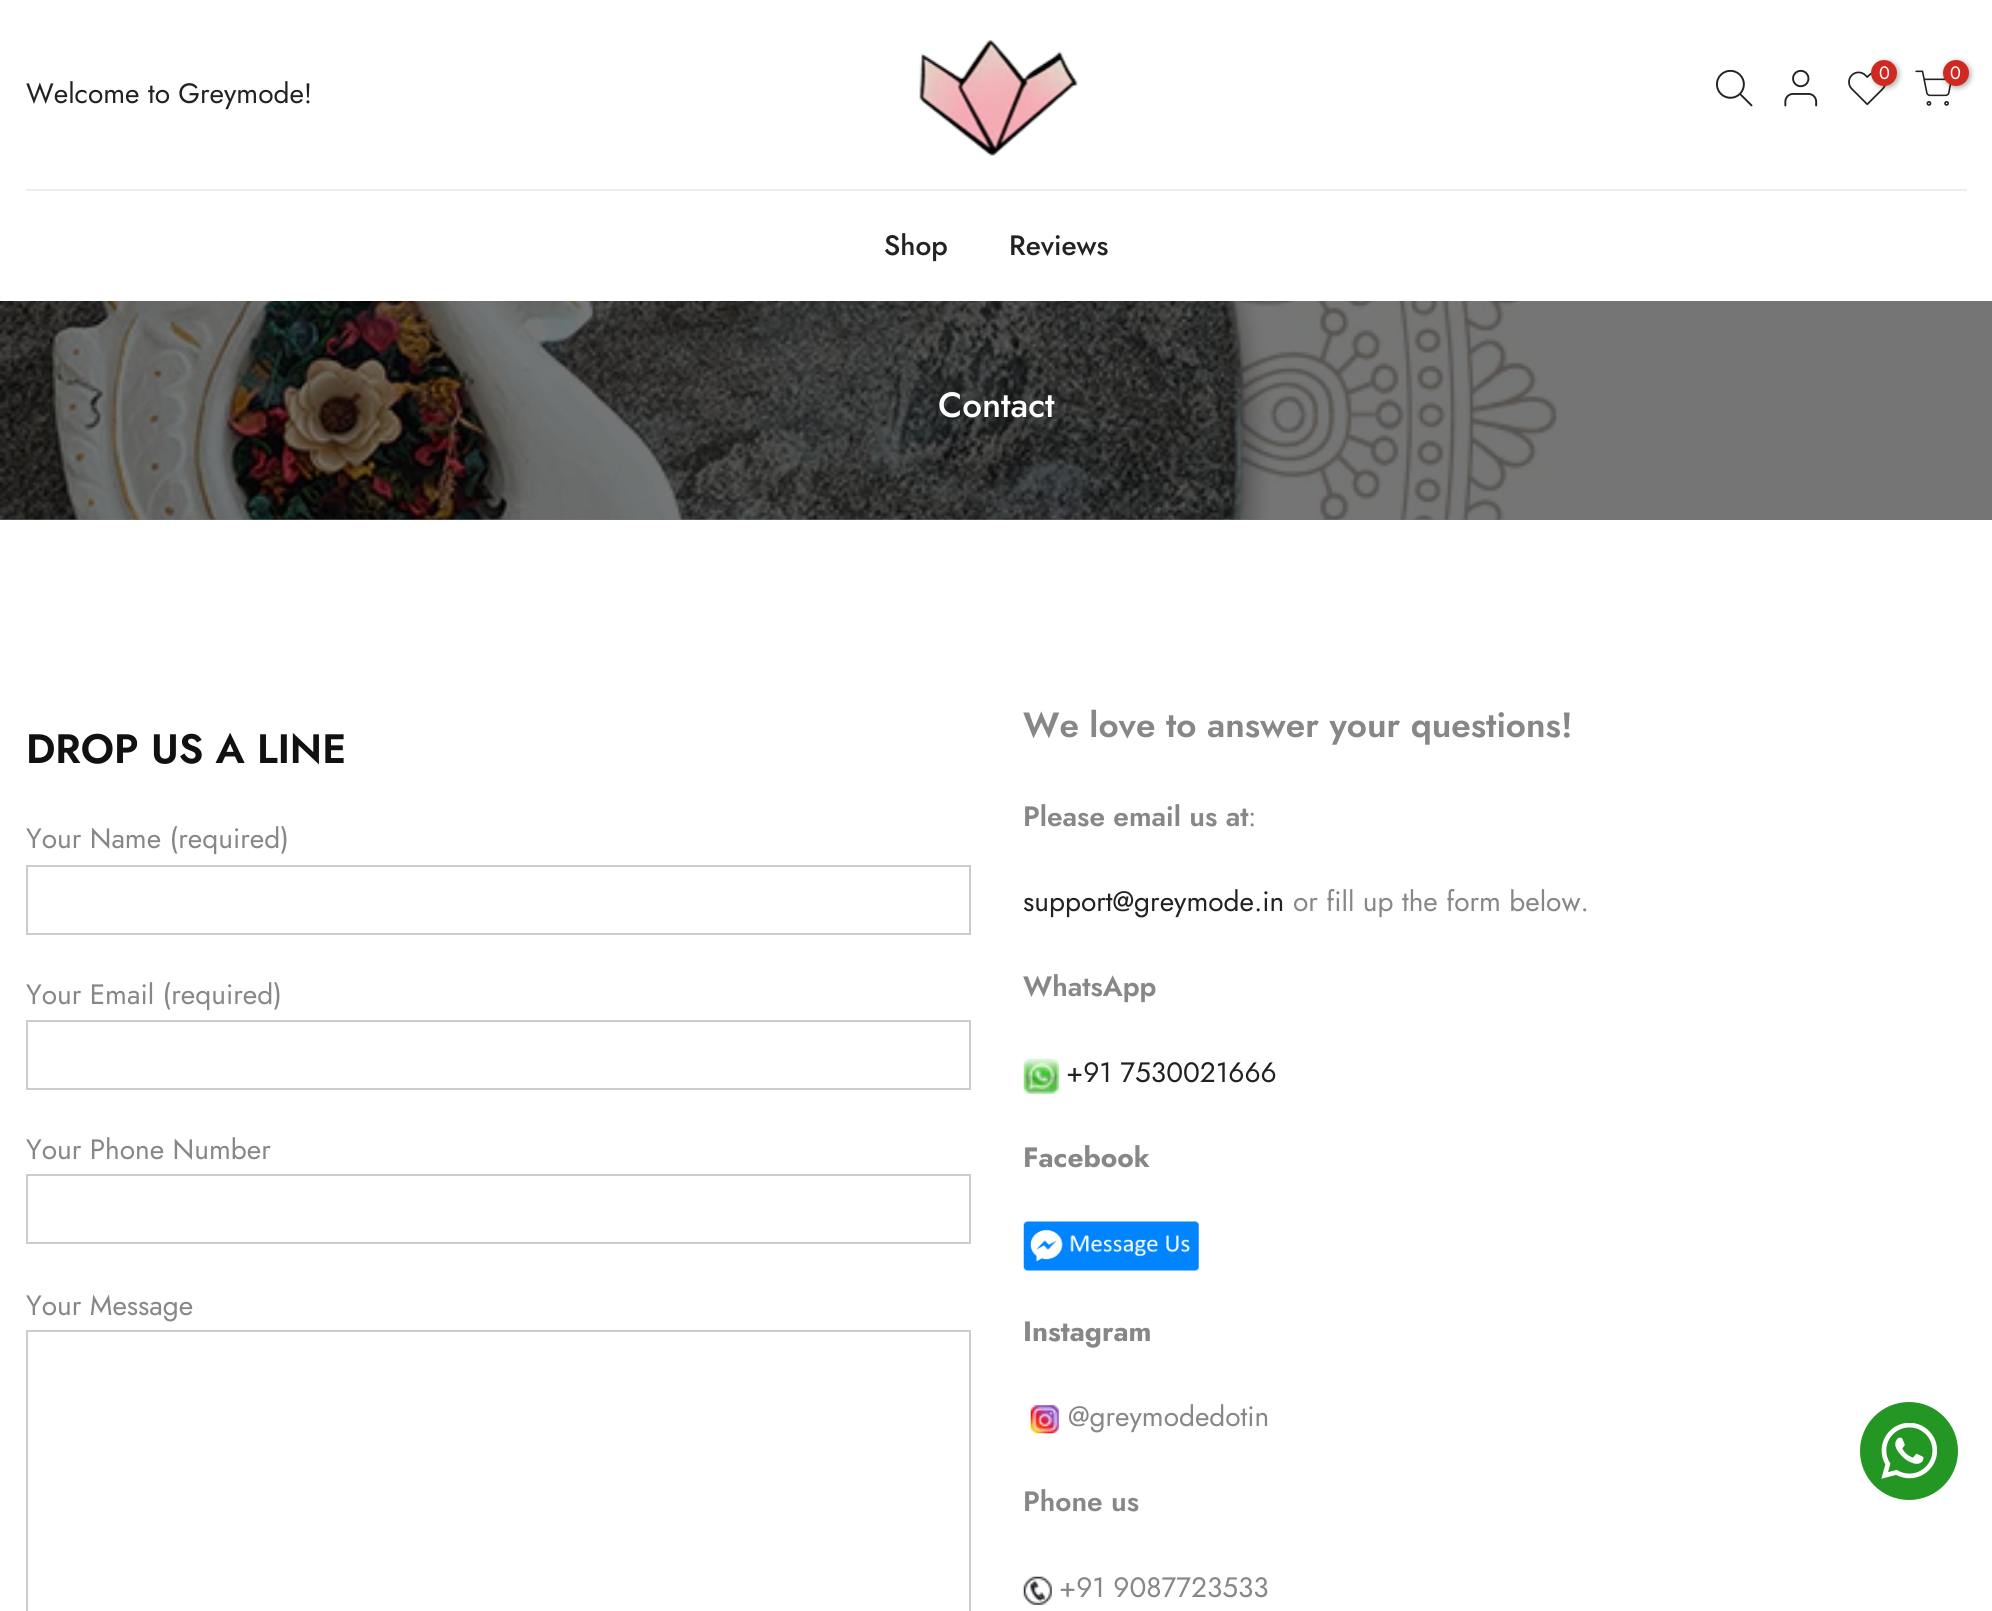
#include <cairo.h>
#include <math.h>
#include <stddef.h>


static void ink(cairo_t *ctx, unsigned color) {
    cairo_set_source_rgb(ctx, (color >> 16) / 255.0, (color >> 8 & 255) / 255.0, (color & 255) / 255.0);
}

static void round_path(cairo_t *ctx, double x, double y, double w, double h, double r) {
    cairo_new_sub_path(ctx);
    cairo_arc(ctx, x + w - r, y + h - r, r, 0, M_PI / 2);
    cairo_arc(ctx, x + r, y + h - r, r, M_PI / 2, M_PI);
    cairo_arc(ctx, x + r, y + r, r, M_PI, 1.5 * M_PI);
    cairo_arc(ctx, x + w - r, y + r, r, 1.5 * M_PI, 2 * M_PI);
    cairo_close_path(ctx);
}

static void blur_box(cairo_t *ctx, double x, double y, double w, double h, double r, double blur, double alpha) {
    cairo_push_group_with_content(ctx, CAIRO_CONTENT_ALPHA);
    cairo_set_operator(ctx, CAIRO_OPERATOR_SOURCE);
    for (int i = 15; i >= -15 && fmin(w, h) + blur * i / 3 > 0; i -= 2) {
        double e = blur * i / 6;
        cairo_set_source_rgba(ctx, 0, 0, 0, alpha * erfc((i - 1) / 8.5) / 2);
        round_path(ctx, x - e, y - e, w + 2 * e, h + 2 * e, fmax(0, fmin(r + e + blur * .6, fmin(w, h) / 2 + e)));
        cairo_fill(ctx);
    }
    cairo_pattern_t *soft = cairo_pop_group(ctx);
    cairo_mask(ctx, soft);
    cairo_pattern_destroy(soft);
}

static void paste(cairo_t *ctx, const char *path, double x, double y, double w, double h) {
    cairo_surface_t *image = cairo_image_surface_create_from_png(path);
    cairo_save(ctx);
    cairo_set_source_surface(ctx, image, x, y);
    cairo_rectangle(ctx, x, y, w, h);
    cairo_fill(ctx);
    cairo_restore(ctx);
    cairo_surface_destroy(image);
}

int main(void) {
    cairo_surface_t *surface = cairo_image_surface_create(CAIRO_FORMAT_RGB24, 1992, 1611);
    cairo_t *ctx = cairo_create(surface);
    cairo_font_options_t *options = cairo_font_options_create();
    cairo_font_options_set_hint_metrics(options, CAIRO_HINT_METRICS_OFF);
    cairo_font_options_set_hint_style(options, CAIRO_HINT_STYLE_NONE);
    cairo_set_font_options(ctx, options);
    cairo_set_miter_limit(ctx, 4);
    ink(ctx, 0xFFFFFF);
    cairo_paint(ctx);
    ink(ctx, 0x757575);
    cairo_rectangle(ctx, 0, 301, 1992, 219);
    cairo_fill(ctx);
    paste(ctx, "media/1.png", 919, 40, 159, 116);
    paste(ctx, "media/2.png", 1716, 69, 37, 38);
    paste(ctx, "media/3.png", 1784, 69, 34, 38);
    paste(ctx, "media/4.png", 1848, 71, 38, 35);
    ink(ctx, 0x000000);
    blur_box(ctx, 1873, 61, 26, 27, 13, 2.5, 0.3);
    ink(ctx, 0xCE2A22);
    cairo_arc(ctx, 1884, 73, 13, 0, 2 * M_PI);
    cairo_fill(ctx);
    cairo_select_font_face(ctx, "Jost", CAIRO_FONT_SLANT_NORMAL, CAIRO_FONT_WEIGHT_NORMAL);
    cairo_set_font_size(ctx, 18);
    ink(ctx, 0xFFFFFF);
    cairo_move_to(ctx, 1879, 79);
    cairo_show_text(ctx, "0");
    paste(ctx, "media/5.png", 1915, 70, 37, 36);
    ink(ctx, 0x000000);
    blur_box(ctx, 1944, 61, 27, 27, 13.5, 2.5, 0.3);
    ink(ctx, 0xCE2A22);
    cairo_arc(ctx, 1956, 73, 13, 0, 2 * M_PI);
    cairo_fill(ctx);
    ink(ctx, 0xFFFFFF);
    cairo_move_to(ctx, 1950, 79);
    cairo_show_text(ctx, "0");
    cairo_set_font_size(ctx, 28);
    ink(ctx, 0x222222);
    cairo_move_to(ctx, 26, 103);
    cairo_show_text(ctx, "Welcome to Greymode!");
    ink(ctx, 0xECECEC);
    cairo_rectangle(ctx, 26, 189, 1941, 2);
    cairo_fill(ctx);
    cairo_select_font_face(ctx, "Jost Medium", CAIRO_FONT_SLANT_NORMAL, CAIRO_FONT_WEIGHT_NORMAL);
    ink(ctx, 0x222222);
    cairo_move_to(ctx, 884, 255);
    cairo_show_text(ctx, "Shop");
    cairo_move_to(ctx, 1009, 255);
    cairo_show_text(ctx, "Reviews");
    paste(ctx, "media/6.png", 0, 301, 1557, 219);
    cairo_set_font_size(ctx, 35);
    ink(ctx, 0xFFFFFF);
    cairo_move_to(ctx, 938, 417);
    cairo_show_text(ctx, "Contact");
    cairo_select_font_face(ctx, "Jost SemiBold", CAIRO_FONT_SLANT_NORMAL, CAIRO_FONT_WEIGHT_NORMAL);
    cairo_set_font_size(ctx, 41);
    ink(ctx, 0x111111);
    cairo_move_to(ctx, 26, 763);
    cairo_show_text(ctx, "DROP US A LINE");
    cairo_select_font_face(ctx, "Jost", CAIRO_FONT_SLANT_NORMAL, CAIRO_FONT_WEIGHT_NORMAL);
    cairo_set_font_size(ctx, 28);
    ink(ctx, 0x878787);
    cairo_move_to(ctx, 26, 848);
    cairo_show_text(ctx, "Your Name (required)");
    cairo_rectangle(ctx, 27, 866, 943, 68);
    ink(ctx, 0xCCCCCC);
    cairo_stroke(ctx);
    ink(ctx, 0x878787);
    cairo_move_to(ctx, 26, 1004);
    cairo_show_text(ctx, "Your Email (required)");
    cairo_rectangle(ctx, 27, 1021, 943, 68);
    ink(ctx, 0xCCCCCC);
    cairo_stroke(ctx);
    ink(ctx, 0x878787);
    cairo_move_to(ctx, 26, 1159);
    cairo_show_text(ctx, "Your Phone Number");
    cairo_rectangle(ctx, 27, 1175, 943, 68);
    ink(ctx, 0xCCCCCC);
    cairo_stroke(ctx);
    ink(ctx, 0x878787);
    cairo_move_to(ctx, 26, 1315);
    cairo_show_text(ctx, "Your Message");
    cairo_rectangle(ctx, 27, 1331, 943, 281);
    ink(ctx, 0xCCCCCC);
    cairo_stroke(ctx);
    cairo_select_font_face(ctx, "Jost SemiBold", CAIRO_FONT_SLANT_NORMAL, CAIRO_FONT_WEIGHT_NORMAL);
    cairo_set_font_size(ctx, 35);
    ink(ctx, 0x878787);
    cairo_move_to(ctx, 1023, 737);
    cairo_show_text(ctx, "We love to answer your questions!");
    cairo_set_font_size(ctx, 28);
    cairo_move_to(ctx, 1023, 826);
    cairo_show_text(ctx, "Please email us at");
    cairo_select_font_face(ctx, "Jost", CAIRO_FONT_SLANT_NORMAL, CAIRO_FONT_WEIGHT_NORMAL);
    cairo_move_to(ctx, 1248, 826);
    cairo_show_text(ctx, ":");
    ink(ctx, 0x222222);
    cairo_move_to(ctx, 1023, 911);
    cairo_show_text(ctx, "support@greymode.in");
    ink(ctx, 0x878787);
    cairo_move_to(ctx, 1293, 911);
    cairo_show_text(ctx, "or fill up the form below.");
    cairo_select_font_face(ctx, "Jost SemiBold", CAIRO_FONT_SLANT_NORMAL, CAIRO_FONT_WEIGHT_NORMAL);
    cairo_move_to(ctx, 1023, 996);
    cairo_show_text(ctx, "WhatsApp");
    paste(ctx, "media/7.png", 1023, 1058, 36, 36);
    cairo_select_font_face(ctx, "Jost", CAIRO_FONT_SLANT_NORMAL, CAIRO_FONT_WEIGHT_NORMAL);
    ink(ctx, 0x222222);
    cairo_move_to(ctx, 1066, 1082);
    cairo_show_text(ctx, "+91 7530021666");
    cairo_select_font_face(ctx, "Jost", CAIRO_FONT_SLANT_NORMAL, CAIRO_FONT_WEIGHT_BOLD);
    ink(ctx, 0x878787);
    cairo_move_to(ctx, 1023, 1167);
    cairo_show_text(ctx, "Facebook");
    paste(ctx, "media/8.png", 1023, 1221, 176, 50);
    cairo_move_to(ctx, 1023, 1341);
    cairo_show_text(ctx, "Instagram");
    paste(ctx, "media/9.png", 1030, 1405, 29, 29);
    cairo_select_font_face(ctx, "Jost", CAIRO_FONT_SLANT_NORMAL, CAIRO_FONT_WEIGHT_NORMAL);
    cairo_move_to(ctx, 1068, 1426);
    cairo_show_text(ctx, "@greymodedotin");
    cairo_select_font_face(ctx, "Jost SemiBold", CAIRO_FONT_SLANT_NORMAL, CAIRO_FONT_WEIGHT_NORMAL);
    cairo_move_to(ctx, 1023, 1511);
    cairo_show_text(ctx, "Phone us");
    paste(ctx, "media/10.png", 1023, 1576, 29, 29);
    cairo_select_font_face(ctx, "Jost", CAIRO_FONT_SLANT_NORMAL, CAIRO_FONT_WEIGHT_NORMAL);
    cairo_move_to(ctx, 1059, 1597);
    cairo_show_text(ctx, "+91 9087723533");
    ink(ctx, 0x239624);
    cairo_new_path(ctx);
    cairo_arc(ctx, 1909, 1451, 49, 0, 2 * M_PI);
    cairo_fill(ctx);
    paste(ctx, "media/11.png", 1881, 1423, 56, 56);
    cairo_surface_write_to_png(surface, "image.png");
    cairo_font_options_destroy(options);
    cairo_destroy(ctx);
    cairo_surface_destroy(surface);
    return 0;
}
